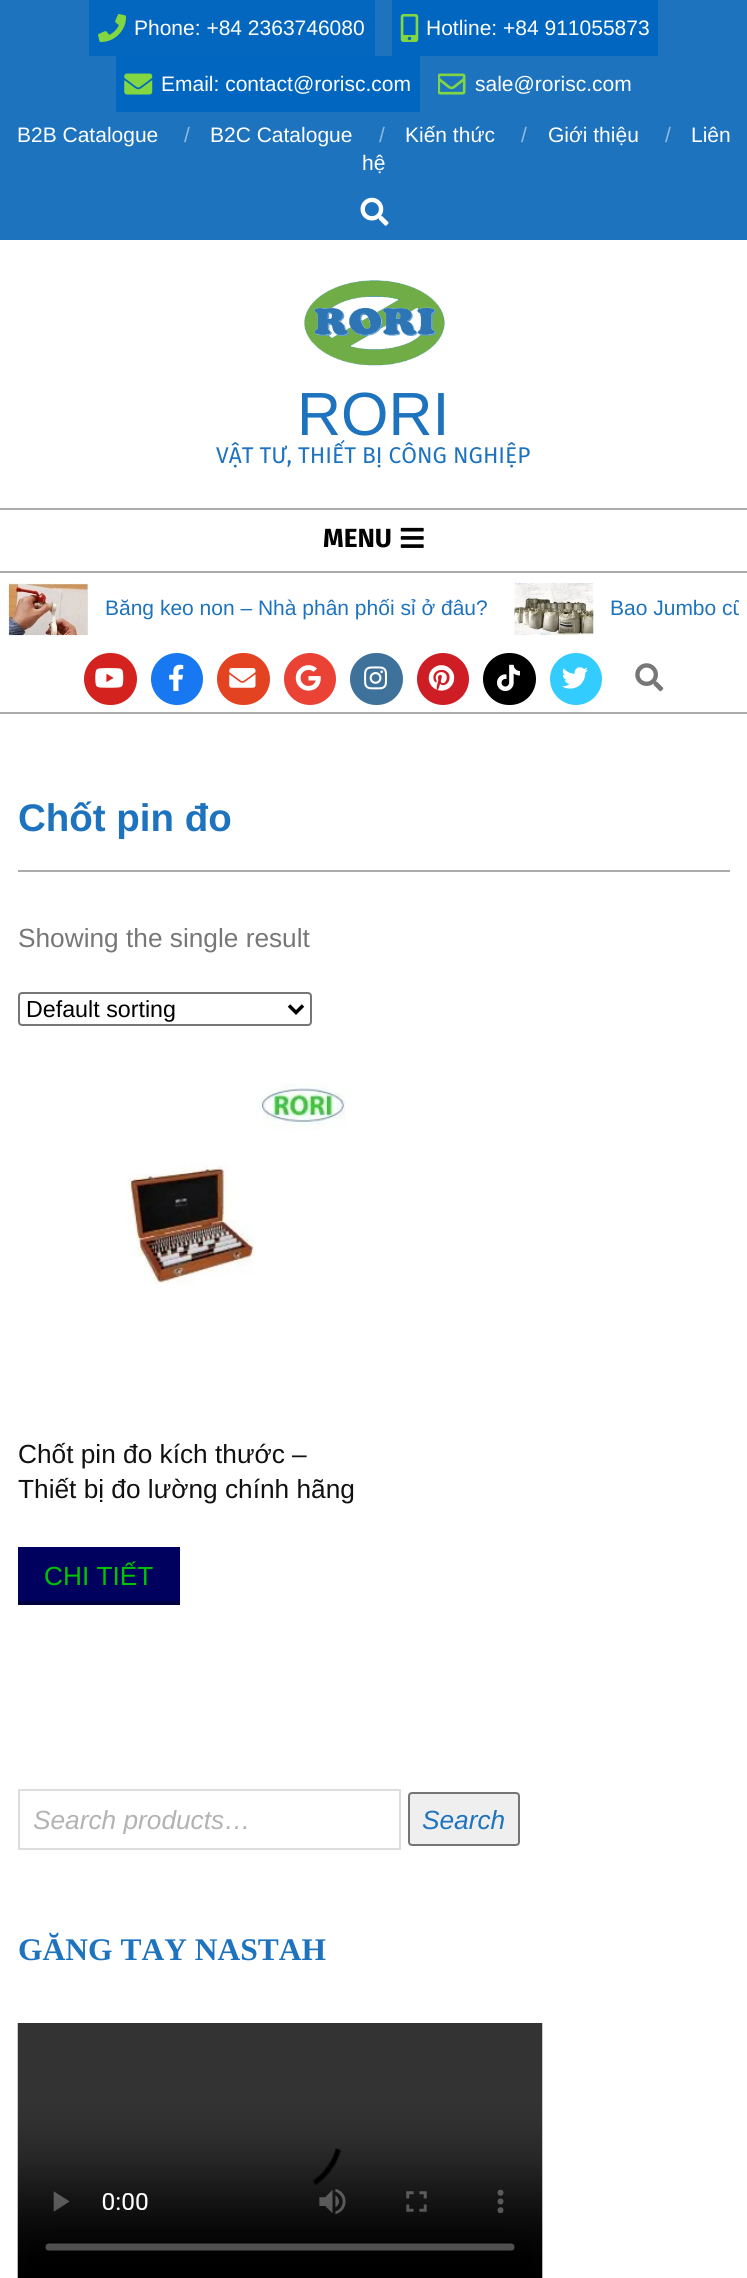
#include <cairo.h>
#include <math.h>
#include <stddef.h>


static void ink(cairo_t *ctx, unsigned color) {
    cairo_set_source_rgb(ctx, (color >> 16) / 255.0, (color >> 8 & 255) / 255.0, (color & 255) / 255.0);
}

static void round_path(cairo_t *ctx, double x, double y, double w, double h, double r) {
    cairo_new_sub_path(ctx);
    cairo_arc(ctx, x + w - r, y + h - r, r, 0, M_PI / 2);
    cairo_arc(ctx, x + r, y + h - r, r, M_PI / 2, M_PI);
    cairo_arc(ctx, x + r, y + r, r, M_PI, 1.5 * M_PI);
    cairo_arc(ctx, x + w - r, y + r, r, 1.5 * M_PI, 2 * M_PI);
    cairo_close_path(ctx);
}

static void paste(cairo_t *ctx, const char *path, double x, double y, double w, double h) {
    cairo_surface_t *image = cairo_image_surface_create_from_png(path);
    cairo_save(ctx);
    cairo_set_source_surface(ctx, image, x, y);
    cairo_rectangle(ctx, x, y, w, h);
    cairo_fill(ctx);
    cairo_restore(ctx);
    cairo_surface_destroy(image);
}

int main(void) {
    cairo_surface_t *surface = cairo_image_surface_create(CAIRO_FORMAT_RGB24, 747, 2278);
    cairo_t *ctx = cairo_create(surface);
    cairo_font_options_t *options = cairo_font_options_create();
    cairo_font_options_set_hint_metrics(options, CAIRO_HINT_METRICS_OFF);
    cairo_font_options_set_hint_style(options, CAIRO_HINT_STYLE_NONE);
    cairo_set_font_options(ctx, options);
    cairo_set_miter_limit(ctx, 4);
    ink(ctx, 0xFFFFFF);
    cairo_paint(ctx);
    ink(ctx, 0x1E73BE);
    cairo_rectangle(ctx, 0, 0, 747, 240);
    cairo_fill(ctx);
    ink(ctx, 0x0367BF);
    cairo_rectangle(ctx, 89, 0, 286, 56);
    cairo_fill(ctx);
    paste(ctx, "media/1.png", 98, 14, 28, 28);
    cairo_select_font_face(ctx, "Liberation Sans", CAIRO_FONT_SLANT_NORMAL, CAIRO_FONT_WEIGHT_NORMAL);
    cairo_set_font_size(ctx, 21);
    ink(ctx, 0xFFFFFF);
    cairo_move_to(ctx, 134, 35);
    cairo_show_text(ctx, "Phone: +84 2363746080");
    ink(ctx, 0x0066BF);
    cairo_rectangle(ctx, 392, 0, 266, 56);
    cairo_fill(ctx);
    paste(ctx, "media/2.png", 400, 14, 19, 28);
    ink(ctx, 0xFFFFFF);
    cairo_move_to(ctx, 426, 35);
    cairo_show_text(ctx, "Hotline: +84 911055873");
    ink(ctx, 0x0066BF);
    cairo_rectangle(ctx, 116, 56, 304, 56);
    cairo_fill(ctx);
    paste(ctx, "media/3.png", 124, 73, 29, 22);
    ink(ctx, 0xFFFFFF);
    cairo_move_to(ctx, 161, 91);
    cairo_show_text(ctx, "Email: contact@rorisc.com");
    paste(ctx, "media/4.png", 438, 73, 28, 22);
    cairo_move_to(ctx, 475, 91);
    cairo_show_text(ctx, "sale@rorisc.com");
    cairo_move_to(ctx, 17, 142);
    cairo_show_text(ctx, "B2B Catalogue");
    ink(ctx, 0x8FB9DF);
    cairo_move_to(ctx, 184, 142);
    cairo_show_text(ctx, "/");
    ink(ctx, 0xFFFFFF);
    cairo_move_to(ctx, 210, 142);
    cairo_show_text(ctx, "B2C Catalogue");
    ink(ctx, 0x8FB9DF);
    cairo_move_to(ctx, 379, 142);
    cairo_show_text(ctx, "/");
    ink(ctx, 0xFFFFFF);
    cairo_move_to(ctx, 405, 142);
    cairo_show_text(ctx, "Kiến thức");
    ink(ctx, 0x8FB9DF);
    cairo_move_to(ctx, 521, 142);
    cairo_show_text(ctx, "/");
    ink(ctx, 0xFFFFFF);
    cairo_move_to(ctx, 548, 142);
    cairo_show_text(ctx, "Giới thiệu");
    ink(ctx, 0x8FB9DF);
    cairo_move_to(ctx, 665, 142);
    cairo_show_text(ctx, "/");
    ink(ctx, 0xFFFFFF);
    cairo_move_to(ctx, 691, 142);
    cairo_show_text(ctx, "Liên");
    cairo_move_to(ctx, 362, 170);
    cairo_show_text(ctx, "hệ");
    paste(ctx, "media/5.png", 360, 197, 29, 29);
    ink(ctx, 0xABABAB);
    cairo_rectangle(ctx, 0, 571, 747, 2);
    cairo_fill(ctx);
    paste(ctx, "media/6.png", 304, 280, 141, 86);
    cairo_set_font_size(ctx, 61);
    ink(ctx, 0x1E73BE);
    cairo_move_to(ctx, 297, 435);
    cairo_show_text(ctx, "RORI");
    cairo_select_font_face(ctx, "Fira Sans", CAIRO_FONT_SLANT_NORMAL, CAIRO_FONT_WEIGHT_NORMAL);
    cairo_set_font_size(ctx, 22.75);
    cairo_move_to(ctx, 216, 463);
    cairo_show_text(ctx, "VẬT TƯ, THIẾT BỊ CÔNG NGHIỆP");
    ink(ctx, 0xABABAB);
    cairo_rectangle(ctx, 0, 508, 747, 2);
    cairo_fill(ctx);
    cairo_select_font_face(ctx, "Fira Sans", CAIRO_FONT_SLANT_NORMAL, CAIRO_FONT_WEIGHT_BOLD);
    cairo_set_font_size(ctx, 26.25);
    ink(ctx, 0x000000);
    cairo_move_to(ctx, 323, 547);
    cairo_show_text(ctx, "MENU");
    paste(ctx, "media/7.png", 400, 527, 24, 21);
    ink(ctx, 0xABABAB);
    cairo_rectangle(ctx, 0, 712, 747, 2);
    cairo_fill(ctx);
    ink(ctx, 0xE6E6E6);
    cairo_rectangle(ctx, 87, 583, 1, 52);
    cairo_fill(ctx);
    paste(ctx, "media/8.png", 8, 583, 80, 53);
    cairo_select_font_face(ctx, "Liberation Sans", CAIRO_FONT_SLANT_NORMAL, CAIRO_FONT_WEIGHT_NORMAL);
    cairo_set_font_size(ctx, 21);
    ink(ctx, 0x1E73BE);
    cairo_move_to(ctx, 105, 615);
    cairo_show_text(ctx, "Băng keo non – Nhà phân phối sỉ ở đâu?");
    paste(ctx, "media/9.png", 514, 583, 80, 52);
    cairo_save(ctx);
    cairo_rectangle(ctx, 9, 583, 730, 52);
    cairo_clip(ctx);
    cairo_move_to(ctx, 610, 615);
    cairo_show_text(ctx, "Bao Jumbo cũ");
    cairo_restore(ctx);
    ink(ctx, 0xD4231E);
    round_path(ctx, 84, 653, 53, 52, 26);
    cairo_fill(ctx);
    paste(ctx, "media/10.png", 95, 668, 29, 20);
    ink(ctx, 0x1778F2);
    cairo_arc(ctx, 177, 679, 26, 0, 2 * M_PI);
    cairo_fill(ctx);
    paste(ctx, "media/11.png", 169, 664, 15, 27);
    ink(ctx, 0xE44321);
    round_path(ctx, 217, 653, 53, 52, 26);
    cairo_fill(ctx);
    paste(ctx, "media/12.png", 229, 668, 27, 20);
    ink(ctx, 0xEA4335);
    cairo_arc(ctx, 310, 679, 26, 0, 2 * M_PI);
    cairo_fill(ctx);
    paste(ctx, "media/13.png", 295, 665, 26, 26);
    ink(ctx, 0x3F729B);
    round_path(ctx, 350, 653, 53, 52, 26);
    cairo_fill(ctx);
    paste(ctx, "media/14.png", 364, 666, 23, 24);
    ink(ctx, 0xCF1D25);
    cairo_arc(ctx, 443, 679, 26, 0, 2 * M_PI);
    cairo_fill(ctx);
    paste(ctx, "media/15.png", 428, 665, 27, 26);
    ink(ctx, 0x000000);
    round_path(ctx, 483, 653, 53, 52, 26);
    cairo_fill(ctx);
    paste(ctx, "media/16.png", 497, 664, 23, 27);
    ink(ctx, 0x32CCFE);
    cairo_arc(ctx, 576, 679, 26, 0, 2 * M_PI);
    cairo_fill(ctx);
    paste(ctx, "media/17.png", 562, 667, 26, 22);
    paste(ctx, "media/18.png", 635, 663, 29, 29);
    ink(ctx, 0xABABAB);
    cairo_rectangle(ctx, 18, 870, 712, 2);
    cairo_fill(ctx);
    cairo_select_font_face(ctx, "Liberation Sans", CAIRO_FONT_SLANT_NORMAL, CAIRO_FONT_WEIGHT_BOLD);
    cairo_set_font_size(ctx, 38.5);
    ink(ctx, 0x1E73BE);
    cairo_move_to(ctx, 18, 831);
    cairo_show_text(ctx, "Chốt pin đo");
    cairo_select_font_face(ctx, "Liberation Sans", CAIRO_FONT_SLANT_NORMAL, CAIRO_FONT_WEIGHT_NORMAL);
    cairo_set_font_size(ctx, 26.25);
    ink(ctx, 0x777777);
    cairo_move_to(ctx, 18, 947);
    cairo_show_text(ctx, "Showing the single result");
    round_path(ctx, 19, 993, 292, 32, 3);
    ink(ctx, 0x767676);
    cairo_stroke(ctx);
    cairo_new_path(ctx);
    cairo_move_to(ctx, 289, 1005.5);
    cairo_line_to(ctx, 296, 1012.5);
    cairo_line_to(ctx, 303, 1005.5);
    ink(ctx, 0x000000);
    cairo_set_line_width(ctx, 3.5);
    cairo_stroke(ctx);
    cairo_set_font_size(ctx, 23.25);
    cairo_move_to(ctx, 26, 1017);
    cairo_show_text(ctx, "Default sorting");
    paste(ctx, "media/19.png", 126, 1083, 220, 202);
    cairo_set_font_size(ctx, 26.25);
    ink(ctx, 0x111111);
    cairo_move_to(ctx, 18, 1463);
    cairo_show_text(ctx, "Chốt pin đo kích thước –");
    cairo_move_to(ctx, 18, 1498);
    cairo_show_text(ctx, "Thiết bị đo lường chính hãng");
    ink(ctx, 0x00005E);
    cairo_rectangle(ctx, 18, 1547, 162, 54);
    cairo_fill(ctx);
    ink(ctx, 0x00003F);
    cairo_rectangle(ctx, 18, 1601, 162, 4);
    cairo_fill(ctx);
    ink(ctx, 0x00C403);
    cairo_move_to(ctx, 44, 1585);
    cairo_show_text(ctx, "CHI TIẾT");
    cairo_rectangle(ctx, 19, 1790, 381, 59);
    ink(ctx, 0xDDDDDD);
    cairo_set_line_width(ctx, 2);
    cairo_stroke(ctx);
    cairo_save(ctx);
    cairo_rectangle(ctx, 33, 1804, 345, 30);
    cairo_clip(ctx);
    cairo_select_font_face(ctx, "Liberation Sans", CAIRO_FONT_SLANT_ITALIC, CAIRO_FONT_WEIGHT_NORMAL);
    ink(ctx, 0xB3B3B3);
    cairo_move_to(ctx, 33, 1829);
    cairo_show_text(ctx, "Search products…");
    cairo_restore(ctx);
    ink(ctx, 0xEFEFEF);
    round_path(ctx, 409, 1793, 110, 52, 3);
    cairo_fill_preserve(ctx);
    ink(ctx, 0x767676);
    cairo_stroke(ctx);
    cairo_select_font_face(ctx, "Liberation Sans", CAIRO_FONT_SLANT_ITALIC, CAIRO_FONT_WEIGHT_NORMAL);
    ink(ctx, 0x1E73BE);
    cairo_move_to(ctx, 422, 1829);
    cairo_show_text(ctx, "Search");
    cairo_select_font_face(ctx, "Liberation Serif", CAIRO_FONT_SLANT_NORMAL, CAIRO_FONT_WEIGHT_BOLD);
    cairo_set_font_size(ctx, 31.5);
    cairo_move_to(ctx, 18, 1960);
    cairo_show_text(ctx, "GĂNG TAY NASTAH");
    paste(ctx, "media/20.png", 17, 2023, 526, 255);
    cairo_surface_write_to_png(surface, "image.png");
    cairo_font_options_destroy(options);
    cairo_destroy(ctx);
    cairo_surface_destroy(surface);
    return 0;
}
